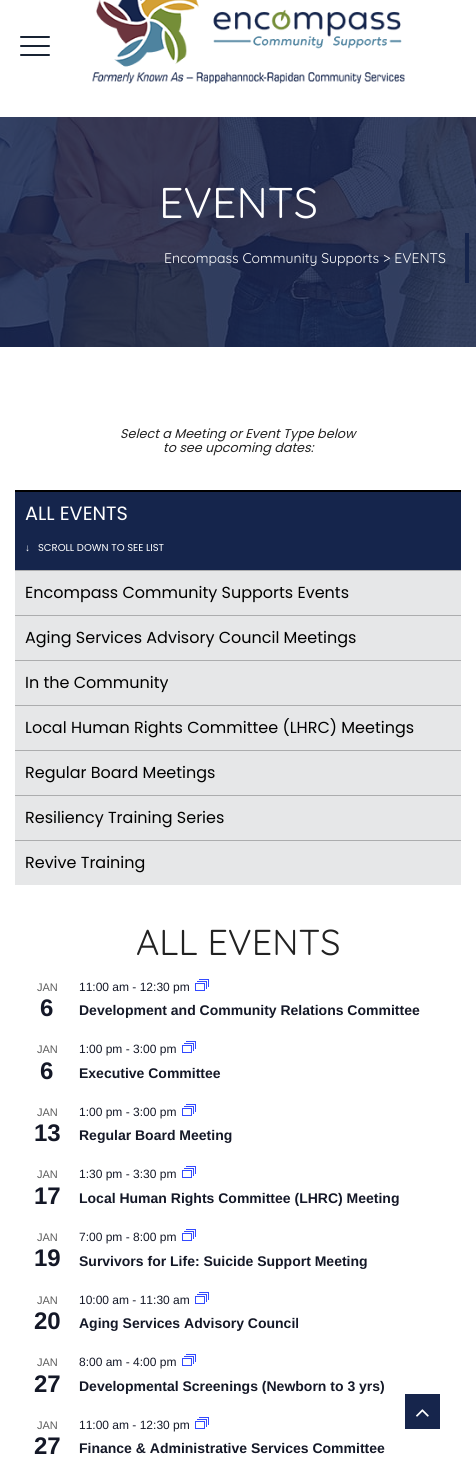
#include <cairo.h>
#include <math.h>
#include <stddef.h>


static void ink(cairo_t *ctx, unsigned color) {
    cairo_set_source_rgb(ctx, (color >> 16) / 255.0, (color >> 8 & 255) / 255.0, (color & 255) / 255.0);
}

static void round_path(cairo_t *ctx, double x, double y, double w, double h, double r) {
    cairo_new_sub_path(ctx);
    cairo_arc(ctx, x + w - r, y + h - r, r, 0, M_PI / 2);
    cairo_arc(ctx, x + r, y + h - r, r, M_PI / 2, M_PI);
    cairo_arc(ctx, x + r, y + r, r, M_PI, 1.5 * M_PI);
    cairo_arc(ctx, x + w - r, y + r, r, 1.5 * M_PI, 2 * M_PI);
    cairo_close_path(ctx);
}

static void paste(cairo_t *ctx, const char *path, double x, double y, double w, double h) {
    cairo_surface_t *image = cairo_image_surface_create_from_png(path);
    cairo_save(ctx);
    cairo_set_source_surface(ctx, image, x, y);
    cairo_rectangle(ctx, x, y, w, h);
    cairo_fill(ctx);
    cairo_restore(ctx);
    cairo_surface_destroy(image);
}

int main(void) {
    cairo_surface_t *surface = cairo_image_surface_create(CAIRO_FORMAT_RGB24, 476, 1465);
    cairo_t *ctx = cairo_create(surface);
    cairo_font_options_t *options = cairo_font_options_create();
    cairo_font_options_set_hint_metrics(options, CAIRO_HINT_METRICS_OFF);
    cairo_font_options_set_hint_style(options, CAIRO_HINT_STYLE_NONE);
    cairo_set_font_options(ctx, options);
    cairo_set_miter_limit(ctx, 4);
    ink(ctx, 0xFFFFFF);
    cairo_paint(ctx);
    ink(ctx, 0x182333);
    round_path(ctx, 20, 45, 30, 2, 1);
    cairo_fill(ctx);
    round_path(ctx, 20, 36, 30, 2, 1);
    cairo_fill(ctx);
    round_path(ctx, 20, 54, 30, 2, 1);
    cairo_fill(ctx);
    paste(ctx, "media/1.png", 92, 0, 313, 84);
    paste(ctx, "media/2.png", 0, 117, 476, 230);
    cairo_select_font_face(ctx, "Quicksand", CAIRO_FONT_SLANT_NORMAL, CAIRO_FONT_WEIGHT_NORMAL);
    cairo_set_font_size(ctx, 43);
    ink(ctx, 0xFFFFFF);
    cairo_move_to(ctx, 159, 218);
    cairo_show_text(ctx, "EVENTS");
    ink(ctx, 0x16254C);
    cairo_rectangle(ctx, 465, 233, 4, 50);
    cairo_fill(ctx);
    cairo_set_font_size(ctx, 14);
    ink(ctx, 0xFFFFFF);
    cairo_move_to(ctx, 164, 263);
    cairo_show_text(ctx, "Encompass Community Supports > EVENTS");
    cairo_select_font_face(ctx, "Poppins", CAIRO_FONT_SLANT_ITALIC, CAIRO_FONT_WEIGHT_NORMAL);
    cairo_set_font_size(ctx, 12.75);
    ink(ctx, 0x222222);
    cairo_move_to(ctx, 120, 438);
    cairo_show_text(ctx, "Select a Meeting or Event Type below");
    cairo_move_to(ctx, 163, 452);
    cairo_show_text(ctx, "to see upcoming dates:");
    ink(ctx, 0x15254C);
    cairo_rectangle(ctx, 15, 492, 446, 78);
    cairo_fill(ctx);
    ink(ctx, 0x000000);
    cairo_rectangle(ctx, 15, 490, 446, 2);
    cairo_fill(ctx);
    cairo_select_font_face(ctx, "Poppins", CAIRO_FONT_SLANT_NORMAL, CAIRO_FONT_WEIGHT_NORMAL);
    cairo_set_font_size(ctx, 19.25);
    ink(ctx, 0xFFFFFF);
    cairo_move_to(ctx, 25, 520);
    cairo_show_text(ctx, "ALL EVENTS");
    cairo_select_font_face(ctx, "Liberation Sans", CAIRO_FONT_SLANT_NORMAL, CAIRO_FONT_WEIGHT_NORMAL);
    cairo_set_font_size(ctx, 10);
    cairo_move_to(ctx, 25, 551);
    cairo_show_text(ctx, "↓");
    cairo_select_font_face(ctx, "Poppins", CAIRO_FONT_SLANT_NORMAL, CAIRO_FONT_WEIGHT_NORMAL);
    cairo_move_to(ctx, 38, 551);
    cairo_show_text(ctx, "SCROLL DOWN TO SEE LIST");
    ink(ctx, 0xE6E7E8);
    cairo_rectangle(ctx, 15, 571, 446, 44);
    cairo_fill(ctx);
    ink(ctx, 0xACADAE);
    cairo_rectangle(ctx, 15, 570, 446, 1);
    cairo_fill(ctx);
    cairo_set_font_size(ctx, 16);
    ink(ctx, 0x000000);
    cairo_move_to(ctx, 25, 598);
    cairo_show_text(ctx, "Encompass Community Supports Events");
    ink(ctx, 0xE6E7E8);
    cairo_rectangle(ctx, 15, 616, 446, 44);
    cairo_fill(ctx);
    ink(ctx, 0xACADAE);
    cairo_rectangle(ctx, 15, 615, 446, 1);
    cairo_fill(ctx);
    ink(ctx, 0x000000);
    cairo_move_to(ctx, 25, 643);
    cairo_show_text(ctx, "Aging Services Advisory Council Meetings");
    ink(ctx, 0xE6E7E8);
    cairo_rectangle(ctx, 15, 661, 446, 44);
    cairo_fill(ctx);
    ink(ctx, 0xACADAE);
    cairo_rectangle(ctx, 15, 660, 446, 1);
    cairo_fill(ctx);
    ink(ctx, 0x000000);
    cairo_move_to(ctx, 25, 688);
    cairo_show_text(ctx, "In the Community");
    ink(ctx, 0xE6E7E8);
    cairo_rectangle(ctx, 15, 706, 446, 44);
    cairo_fill(ctx);
    ink(ctx, 0xACADAE);
    cairo_rectangle(ctx, 15, 705, 446, 1);
    cairo_fill(ctx);
    ink(ctx, 0x000000);
    cairo_move_to(ctx, 25, 733);
    cairo_show_text(ctx, "Local Human Rights Committee (LHRC) Meetings");
    ink(ctx, 0xE6E7E8);
    cairo_rectangle(ctx, 15, 751, 446, 44);
    cairo_fill(ctx);
    ink(ctx, 0xACADAE);
    cairo_rectangle(ctx, 15, 750, 446, 1);
    cairo_fill(ctx);
    ink(ctx, 0x000000);
    cairo_move_to(ctx, 25, 778);
    cairo_show_text(ctx, "Regular Board Meetings");
    ink(ctx, 0xE6E7E8);
    cairo_rectangle(ctx, 15, 796, 446, 44);
    cairo_fill(ctx);
    ink(ctx, 0xACADAE);
    cairo_rectangle(ctx, 15, 795, 446, 1);
    cairo_fill(ctx);
    ink(ctx, 0x000000);
    cairo_move_to(ctx, 25, 823);
    cairo_show_text(ctx, "Resiliency Training Series");
    ink(ctx, 0xE6E7E8);
    cairo_rectangle(ctx, 15, 841, 446, 44);
    cairo_fill(ctx);
    ink(ctx, 0xACADAE);
    cairo_rectangle(ctx, 15, 840, 446, 1);
    cairo_fill(ctx);
    ink(ctx, 0x000000);
    cairo_move_to(ctx, 25, 868);
    cairo_show_text(ctx, "Revive Training");
    cairo_select_font_face(ctx, "Quicksand", CAIRO_FONT_SLANT_NORMAL, CAIRO_FONT_WEIGHT_NORMAL);
    cairo_set_font_size(ctx, 36);
    ink(ctx, 0x222222);
    cairo_move_to(ctx, 136, 955);
    cairo_show_text(ctx, "ALL EVENTS");
    cairo_select_font_face(ctx, "Liberation Sans", CAIRO_FONT_SLANT_NORMAL, CAIRO_FONT_WEIGHT_NORMAL);
    cairo_set_font_size(ctx, 11);
    ink(ctx, 0x5D5D5D);
    cairo_move_to(ctx, 37, 991);
    cairo_show_text(ctx, "JAN");
    cairo_select_font_face(ctx, "Liberation Sans", CAIRO_FONT_SLANT_NORMAL, CAIRO_FONT_WEIGHT_BOLD);
    cairo_set_font_size(ctx, 24);
    ink(ctx, 0x141827);
    cairo_move_to(ctx, 40, 1016);
    cairo_show_text(ctx, "6");
    cairo_select_font_face(ctx, "Liberation Sans", CAIRO_FONT_SLANT_NORMAL, CAIRO_FONT_WEIGHT_NORMAL);
    cairo_set_font_size(ctx, 12);
    cairo_move_to(ctx, 79, 991);
    cairo_show_text(ctx, "11:00 am - 12:30 pm");
    paste(ctx, "media/3.png", 195, 979, 14, 12);
    cairo_select_font_face(ctx, "Liberation Sans", CAIRO_FONT_SLANT_NORMAL, CAIRO_FONT_WEIGHT_BOLD);
    cairo_set_font_size(ctx, 14);
    cairo_move_to(ctx, 79, 1015);
    cairo_show_text(ctx, "Development and Community Relations Committee");
    cairo_select_font_face(ctx, "Liberation Sans", CAIRO_FONT_SLANT_NORMAL, CAIRO_FONT_WEIGHT_NORMAL);
    cairo_set_font_size(ctx, 11);
    ink(ctx, 0x5D5D5D);
    cairo_move_to(ctx, 37, 1053);
    cairo_show_text(ctx, "JAN");
    cairo_select_font_face(ctx, "Liberation Sans", CAIRO_FONT_SLANT_NORMAL, CAIRO_FONT_WEIGHT_BOLD);
    cairo_set_font_size(ctx, 24);
    ink(ctx, 0x141827);
    cairo_move_to(ctx, 40, 1079);
    cairo_show_text(ctx, "6");
    cairo_select_font_face(ctx, "Liberation Sans", CAIRO_FONT_SLANT_NORMAL, CAIRO_FONT_WEIGHT_NORMAL);
    cairo_set_font_size(ctx, 12);
    cairo_move_to(ctx, 79, 1053);
    cairo_show_text(ctx, "1:00 pm - 3:00 pm");
    paste(ctx, "media/3.png", 182, 1041, 14, 12);
    cairo_select_font_face(ctx, "Liberation Sans", CAIRO_FONT_SLANT_NORMAL, CAIRO_FONT_WEIGHT_BOLD);
    cairo_set_font_size(ctx, 14);
    cairo_move_to(ctx, 79, 1078);
    cairo_show_text(ctx, "Executive Committee");
    cairo_select_font_face(ctx, "Liberation Sans", CAIRO_FONT_SLANT_NORMAL, CAIRO_FONT_WEIGHT_NORMAL);
    cairo_set_font_size(ctx, 11);
    ink(ctx, 0x5D5D5D);
    cairo_move_to(ctx, 37, 1116);
    cairo_show_text(ctx, "JAN");
    cairo_select_font_face(ctx, "Liberation Sans", CAIRO_FONT_SLANT_NORMAL, CAIRO_FONT_WEIGHT_BOLD);
    cairo_set_font_size(ctx, 24);
    ink(ctx, 0x141827);
    cairo_move_to(ctx, 34, 1141);
    cairo_show_text(ctx, "13");
    cairo_select_font_face(ctx, "Liberation Sans", CAIRO_FONT_SLANT_NORMAL, CAIRO_FONT_WEIGHT_NORMAL);
    cairo_set_font_size(ctx, 12);
    cairo_move_to(ctx, 79, 1116);
    cairo_show_text(ctx, "1:00 pm - 3:00 pm");
    paste(ctx, "media/3.png", 182, 1104, 14, 12);
    cairo_select_font_face(ctx, "Liberation Sans", CAIRO_FONT_SLANT_NORMAL, CAIRO_FONT_WEIGHT_BOLD);
    cairo_set_font_size(ctx, 14);
    cairo_move_to(ctx, 79, 1140);
    cairo_show_text(ctx, "Regular Board Meeting");
    cairo_select_font_face(ctx, "Liberation Sans", CAIRO_FONT_SLANT_NORMAL, CAIRO_FONT_WEIGHT_NORMAL);
    cairo_set_font_size(ctx, 11);
    ink(ctx, 0x5D5D5D);
    cairo_move_to(ctx, 37, 1178);
    cairo_show_text(ctx, "JAN");
    cairo_select_font_face(ctx, "Liberation Sans", CAIRO_FONT_SLANT_NORMAL, CAIRO_FONT_WEIGHT_BOLD);
    cairo_set_font_size(ctx, 24);
    ink(ctx, 0x141827);
    cairo_move_to(ctx, 34, 1204);
    cairo_show_text(ctx, "17");
    cairo_select_font_face(ctx, "Liberation Sans", CAIRO_FONT_SLANT_NORMAL, CAIRO_FONT_WEIGHT_NORMAL);
    cairo_set_font_size(ctx, 12);
    cairo_move_to(ctx, 79, 1178);
    cairo_show_text(ctx, "1:30 pm - 3:30 pm");
    paste(ctx, "media/3.png", 182, 1166, 14, 12);
    cairo_select_font_face(ctx, "Liberation Sans", CAIRO_FONT_SLANT_NORMAL, CAIRO_FONT_WEIGHT_BOLD);
    cairo_set_font_size(ctx, 14);
    cairo_move_to(ctx, 79, 1203);
    cairo_show_text(ctx, "Local Human Rights Committee (LHRC) Meeting");
    cairo_select_font_face(ctx, "Liberation Sans", CAIRO_FONT_SLANT_NORMAL, CAIRO_FONT_WEIGHT_NORMAL);
    cairo_set_font_size(ctx, 11);
    ink(ctx, 0x5D5D5D);
    cairo_move_to(ctx, 37, 1241);
    cairo_show_text(ctx, "JAN");
    cairo_select_font_face(ctx, "Liberation Sans", CAIRO_FONT_SLANT_NORMAL, CAIRO_FONT_WEIGHT_BOLD);
    cairo_set_font_size(ctx, 24);
    ink(ctx, 0x141827);
    cairo_move_to(ctx, 34, 1266);
    cairo_show_text(ctx, "19");
    cairo_select_font_face(ctx, "Liberation Sans", CAIRO_FONT_SLANT_NORMAL, CAIRO_FONT_WEIGHT_NORMAL);
    cairo_set_font_size(ctx, 12);
    cairo_move_to(ctx, 79, 1241);
    cairo_show_text(ctx, "7:00 pm - 8:00 pm");
    paste(ctx, "media/3.png", 182, 1229, 14, 12);
    cairo_select_font_face(ctx, "Liberation Sans", CAIRO_FONT_SLANT_NORMAL, CAIRO_FONT_WEIGHT_BOLD);
    cairo_set_font_size(ctx, 14);
    cairo_move_to(ctx, 79, 1266);
    cairo_show_text(ctx, "Survivors for Life: Suicide Support Meeting");
    cairo_select_font_face(ctx, "Liberation Sans", CAIRO_FONT_SLANT_NORMAL, CAIRO_FONT_WEIGHT_NORMAL);
    cairo_set_font_size(ctx, 11);
    ink(ctx, 0x5D5D5D);
    cairo_move_to(ctx, 37, 1304);
    cairo_show_text(ctx, "JAN");
    cairo_select_font_face(ctx, "Liberation Sans", CAIRO_FONT_SLANT_NORMAL, CAIRO_FONT_WEIGHT_BOLD);
    cairo_set_font_size(ctx, 24);
    ink(ctx, 0x141827);
    cairo_move_to(ctx, 34, 1329);
    cairo_show_text(ctx, "20");
    cairo_select_font_face(ctx, "Liberation Sans", CAIRO_FONT_SLANT_NORMAL, CAIRO_FONT_WEIGHT_NORMAL);
    cairo_set_font_size(ctx, 12);
    cairo_move_to(ctx, 79, 1304);
    cairo_show_text(ctx, "10:00 am - 11:30 am");
    paste(ctx, "media/3.png", 195, 1292, 14, 12);
    cairo_select_font_face(ctx, "Liberation Sans", CAIRO_FONT_SLANT_NORMAL, CAIRO_FONT_WEIGHT_BOLD);
    cairo_set_font_size(ctx, 14);
    cairo_move_to(ctx, 79, 1328);
    cairo_show_text(ctx, "Aging Services Advisory Council");
    cairo_select_font_face(ctx, "Liberation Sans", CAIRO_FONT_SLANT_NORMAL, CAIRO_FONT_WEIGHT_NORMAL);
    cairo_set_font_size(ctx, 11);
    ink(ctx, 0x5D5D5D);
    cairo_move_to(ctx, 37, 1366);
    cairo_show_text(ctx, "JAN");
    cairo_select_font_face(ctx, "Liberation Sans", CAIRO_FONT_SLANT_NORMAL, CAIRO_FONT_WEIGHT_BOLD);
    cairo_set_font_size(ctx, 24);
    ink(ctx, 0x141827);
    cairo_move_to(ctx, 34, 1392);
    cairo_show_text(ctx, "27");
    cairo_select_font_face(ctx, "Liberation Sans", CAIRO_FONT_SLANT_NORMAL, CAIRO_FONT_WEIGHT_NORMAL);
    cairo_set_font_size(ctx, 12);
    cairo_move_to(ctx, 79, 1366);
    cairo_show_text(ctx, "8:00 am - 4:00 pm");
    paste(ctx, "media/3.png", 182, 1354, 14, 12);
    cairo_select_font_face(ctx, "Liberation Sans", CAIRO_FONT_SLANT_NORMAL, CAIRO_FONT_WEIGHT_BOLD);
    cairo_set_font_size(ctx, 14);
    cairo_move_to(ctx, 79, 1391);
    cairo_show_text(ctx, "Developmental Screenings (Newborn to 3 yrs)");
    cairo_select_font_face(ctx, "Liberation Sans", CAIRO_FONT_SLANT_NORMAL, CAIRO_FONT_WEIGHT_NORMAL);
    cairo_set_font_size(ctx, 11);
    ink(ctx, 0x5D5D5D);
    cairo_move_to(ctx, 37, 1429);
    cairo_show_text(ctx, "JAN");
    cairo_select_font_face(ctx, "Liberation Sans", CAIRO_FONT_SLANT_NORMAL, CAIRO_FONT_WEIGHT_BOLD);
    cairo_set_font_size(ctx, 24);
    ink(ctx, 0x141827);
    cairo_move_to(ctx, 34, 1454);
    cairo_show_text(ctx, "27");
    cairo_select_font_face(ctx, "Liberation Sans", CAIRO_FONT_SLANT_NORMAL, CAIRO_FONT_WEIGHT_NORMAL);
    cairo_set_font_size(ctx, 12);
    cairo_move_to(ctx, 79, 1429);
    cairo_show_text(ctx, "11:00 am - 12:30 pm");
    paste(ctx, "media/3.png", 195, 1417, 14, 12);
    cairo_select_font_face(ctx, "Liberation Sans", CAIRO_FONT_SLANT_NORMAL, CAIRO_FONT_WEIGHT_BOLD);
    cairo_set_font_size(ctx, 14);
    cairo_move_to(ctx, 79, 1453);
    cairo_show_text(ctx, "Finance & Administrative Services Committee");
    ink(ctx, 0x16254C);
    cairo_rectangle(ctx, 405, 1394, 35, 35);
    cairo_fill(ctx);
    paste(ctx, "media/4.png", 416, 1409, 13, 8);
    cairo_surface_write_to_png(surface, "image.png");
    cairo_font_options_destroy(options);
    cairo_destroy(ctx);
    cairo_surface_destroy(surface);
    return 0;
}
